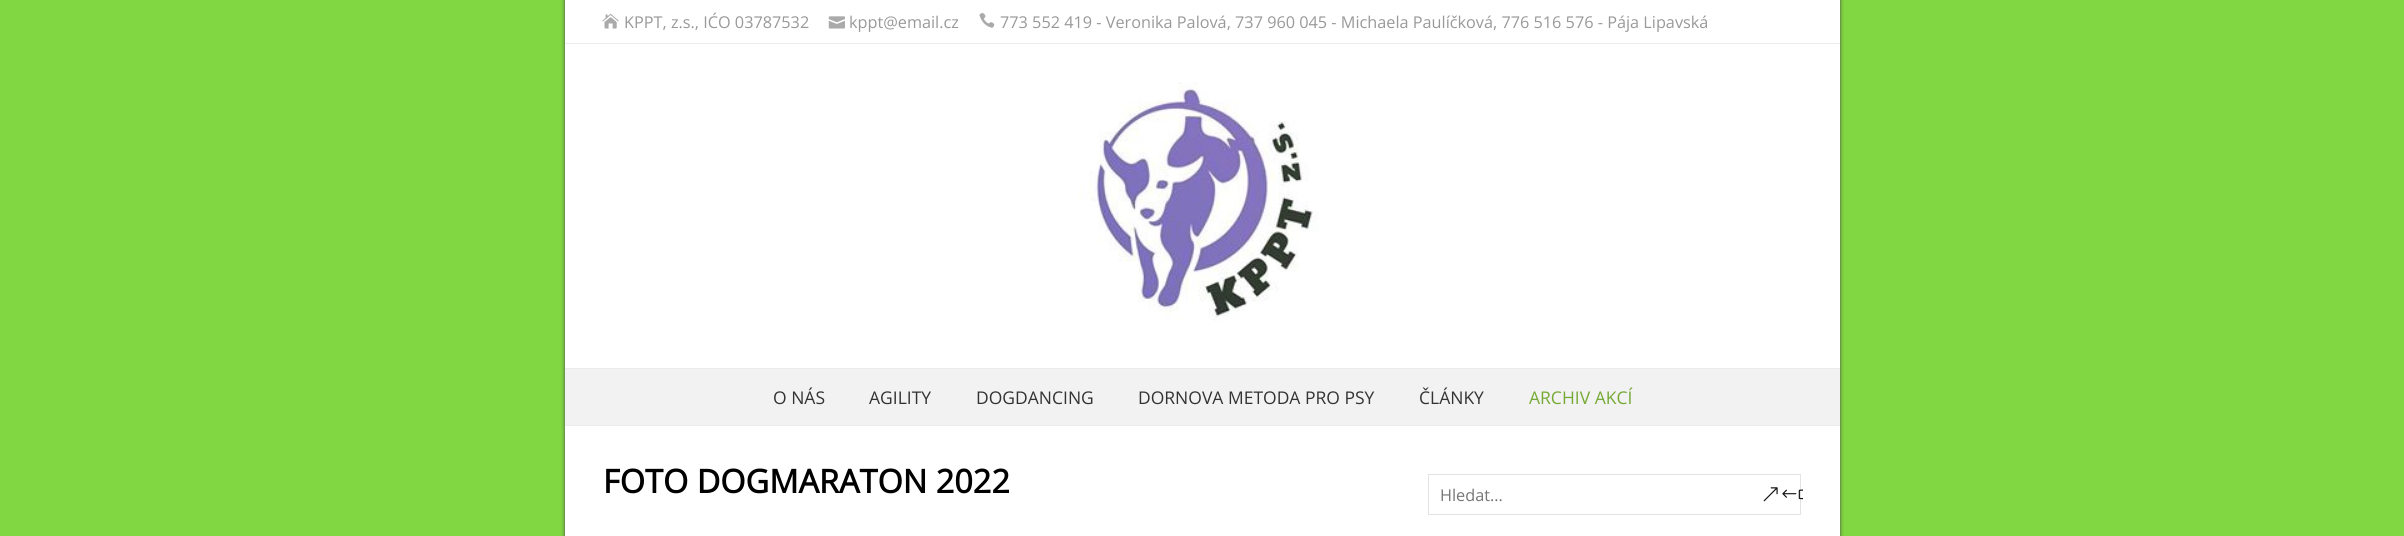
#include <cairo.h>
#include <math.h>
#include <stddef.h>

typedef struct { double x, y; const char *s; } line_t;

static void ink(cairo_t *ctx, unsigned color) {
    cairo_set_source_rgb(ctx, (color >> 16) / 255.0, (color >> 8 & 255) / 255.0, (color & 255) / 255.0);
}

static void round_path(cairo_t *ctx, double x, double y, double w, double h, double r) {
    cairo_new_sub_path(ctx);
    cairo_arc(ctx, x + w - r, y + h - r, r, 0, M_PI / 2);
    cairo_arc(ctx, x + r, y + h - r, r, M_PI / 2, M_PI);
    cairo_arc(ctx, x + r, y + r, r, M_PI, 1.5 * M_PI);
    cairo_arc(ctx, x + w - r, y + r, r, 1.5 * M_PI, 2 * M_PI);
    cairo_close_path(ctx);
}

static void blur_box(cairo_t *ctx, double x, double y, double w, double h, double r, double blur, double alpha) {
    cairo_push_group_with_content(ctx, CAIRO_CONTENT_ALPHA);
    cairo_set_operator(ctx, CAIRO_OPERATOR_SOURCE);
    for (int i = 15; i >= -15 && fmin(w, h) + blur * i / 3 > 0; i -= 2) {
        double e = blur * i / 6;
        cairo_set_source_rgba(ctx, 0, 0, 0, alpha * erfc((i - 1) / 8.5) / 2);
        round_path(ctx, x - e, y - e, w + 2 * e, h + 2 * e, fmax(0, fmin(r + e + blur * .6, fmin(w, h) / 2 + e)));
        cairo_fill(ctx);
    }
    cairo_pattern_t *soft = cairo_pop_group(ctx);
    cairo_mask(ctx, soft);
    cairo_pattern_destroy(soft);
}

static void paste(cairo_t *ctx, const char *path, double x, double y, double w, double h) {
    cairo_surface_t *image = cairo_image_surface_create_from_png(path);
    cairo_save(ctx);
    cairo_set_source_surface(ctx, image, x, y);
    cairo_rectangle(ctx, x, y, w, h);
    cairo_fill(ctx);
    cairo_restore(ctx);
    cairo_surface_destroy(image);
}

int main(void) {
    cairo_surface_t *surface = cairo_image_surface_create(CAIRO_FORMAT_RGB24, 2404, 536);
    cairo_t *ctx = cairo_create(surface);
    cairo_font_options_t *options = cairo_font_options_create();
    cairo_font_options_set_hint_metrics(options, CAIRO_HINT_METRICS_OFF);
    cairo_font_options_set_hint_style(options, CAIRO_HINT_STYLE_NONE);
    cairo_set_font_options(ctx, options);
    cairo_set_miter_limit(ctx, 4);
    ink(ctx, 0x81D742);
    cairo_paint(ctx);
    ink(ctx, 0x444444);
    blur_box(ctx, 565, 0, 1275, 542, 0, 2, 1);
    ink(ctx, 0xFFFFFF);
    cairo_rectangle(ctx, 565, 0, 1275, 536);
    cairo_fill(ctx);
    ink(ctx, 0xEBEBEB);
    cairo_rectangle(ctx, 565, 43, 1275, 1);
    cairo_fill(ctx);
    paste(ctx, "media/1.png", 602, 13, 17, 16);
    cairo_select_font_face(ctx, "Open Sans", CAIRO_FONT_SLANT_NORMAL, CAIRO_FONT_WEIGHT_NORMAL);
    cairo_set_font_size(ctx, 16.25);
    ink(ctx, 0x999999);
    cairo_move_to(ctx, 624, 28);
    cairo_show_text(ctx, "KPPT, z.s., IĆO 03787532");
    paste(ctx, "media/2.png", 828, 16, 17, 13);
    cairo_move_to(ctx, 849, 28);
    cairo_show_text(ctx, "kppt@email.cz");
    paste(ctx, "media/3.png", 979, 13, 16, 15);
    cairo_move_to(ctx, 1000, 28);
    cairo_show_text(ctx, "773 552 419 - Veronika Palová, 737 960 045 - Michaela Paulíčková, 776 516 576 - Pája Lipavská");
    ink(ctx, 0xEBEBEB);
    cairo_rectangle(ctx, 565, 368, 1275, 1);
    cairo_fill(ctx);
    paste(ctx, "media/4.png", 1079, 82, 240, 239);
    ink(ctx, 0xF2F2F2);
    cairo_rectangle(ctx, 565, 369, 1275, 56);
    cairo_fill(ctx);
    ink(ctx, 0xEBEBEB);
    cairo_rectangle(ctx, 565, 425, 1275, 1);
    cairo_fill(ctx);
    cairo_set_font_size(ctx, 17.5);
    ink(ctx, 0x333333);
    {
        static const line_t items[] = {
            {773, 404, "O NÁS"},
            {869, 404, "AGILITY"},
            {976, 404, "DOGDANCING"},
            {1138, 404, "DORNOVA METODA PRO PSY"},
            {1419, 404, "ČLÁNKY"},
        };
        for (size_t i = 0; i < sizeof items / sizeof *items; i++) {
            cairo_move_to(ctx, items[i].x, items[i].y);
            cairo_show_text(ctx, items[i].s);
        }
    }
    ink(ctx, 0x76A934);
    cairo_move_to(ctx, 1529, 404);
    cairo_show_text(ctx, "ARCHIV AKCÍ");
    cairo_select_font_face(ctx, "Open Sans", CAIRO_FONT_SLANT_NORMAL, CAIRO_FONT_WEIGHT_BOLD);
    cairo_set_font_size(ctx, 32.5);
    ink(ctx, 0x000000);
    cairo_move_to(ctx, 603, 493);
    cairo_show_text(ctx, "FOTO DOGMARATON 2022");
    cairo_rectangle(ctx, 1428.5, 474.5, 372, 40);
    ink(ctx, 0xE3E3E3);
    cairo_set_line_width(ctx, 1);
    cairo_stroke(ctx);
    cairo_select_font_face(ctx, "Open Sans", CAIRO_FONT_SLANT_NORMAL, CAIRO_FONT_WEIGHT_NORMAL);
    cairo_set_font_size(ctx, 16.25);
    ink(ctx, 0x757575);
    cairo_move_to(ctx, 1440, 501);
    cairo_show_text(ctx, "Hledat...");
    paste(ctx, "media/5.png", 1763, 487, 40, 15);
    cairo_surface_write_to_png(surface, "image.png");
    cairo_font_options_destroy(options);
    cairo_destroy(ctx);
    cairo_surface_destroy(surface);
    return 0;
}
